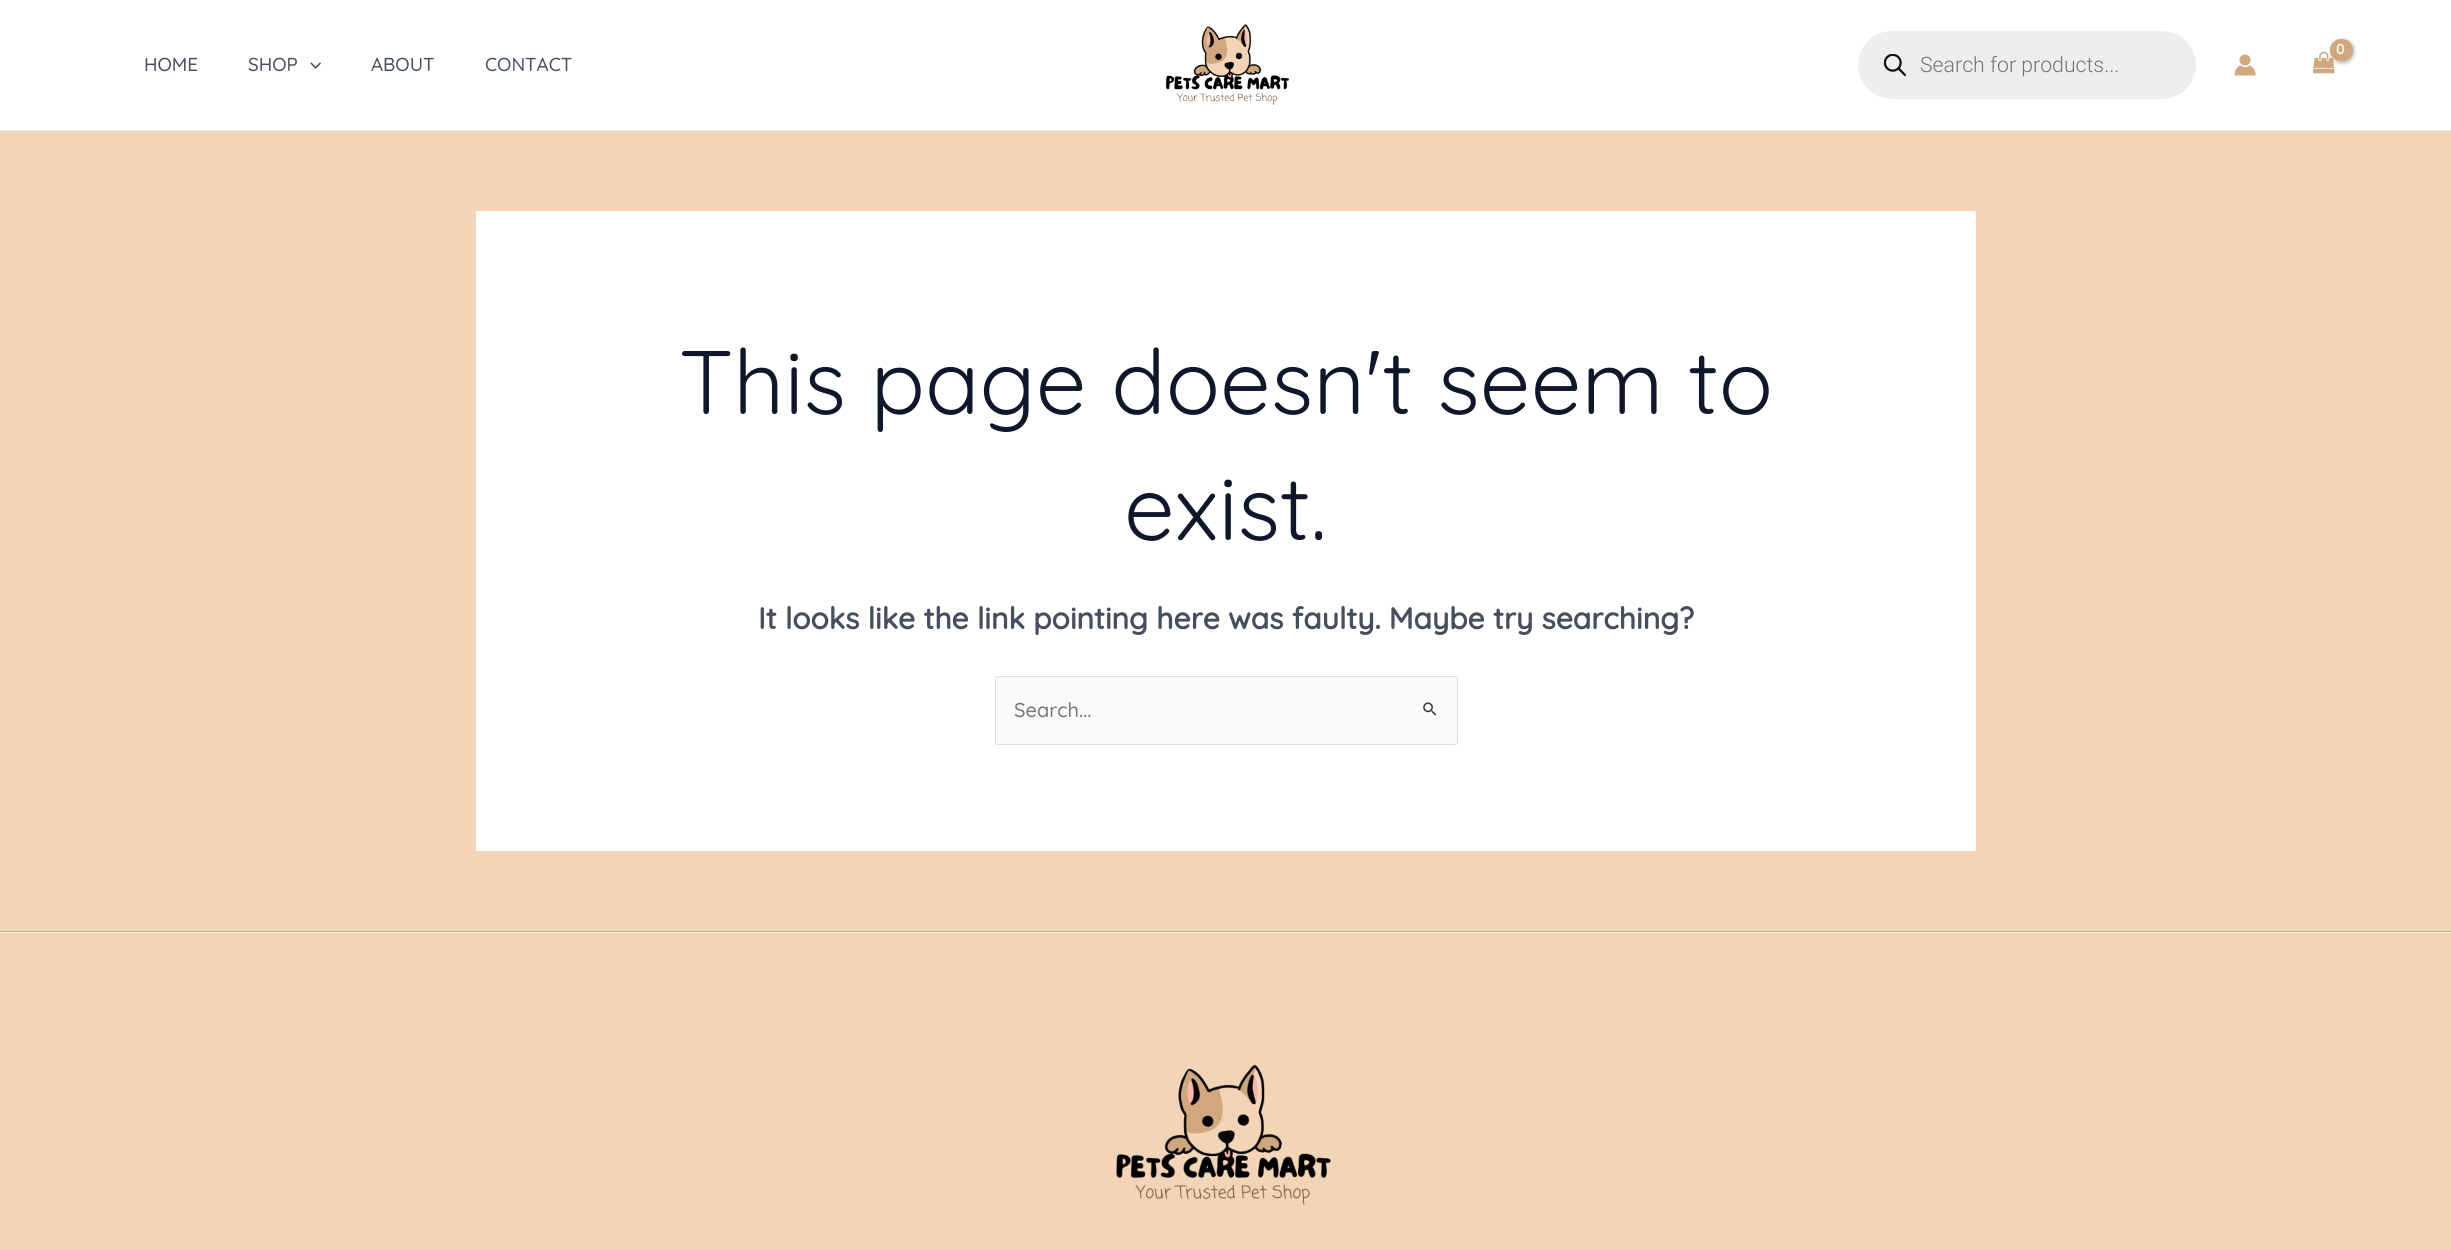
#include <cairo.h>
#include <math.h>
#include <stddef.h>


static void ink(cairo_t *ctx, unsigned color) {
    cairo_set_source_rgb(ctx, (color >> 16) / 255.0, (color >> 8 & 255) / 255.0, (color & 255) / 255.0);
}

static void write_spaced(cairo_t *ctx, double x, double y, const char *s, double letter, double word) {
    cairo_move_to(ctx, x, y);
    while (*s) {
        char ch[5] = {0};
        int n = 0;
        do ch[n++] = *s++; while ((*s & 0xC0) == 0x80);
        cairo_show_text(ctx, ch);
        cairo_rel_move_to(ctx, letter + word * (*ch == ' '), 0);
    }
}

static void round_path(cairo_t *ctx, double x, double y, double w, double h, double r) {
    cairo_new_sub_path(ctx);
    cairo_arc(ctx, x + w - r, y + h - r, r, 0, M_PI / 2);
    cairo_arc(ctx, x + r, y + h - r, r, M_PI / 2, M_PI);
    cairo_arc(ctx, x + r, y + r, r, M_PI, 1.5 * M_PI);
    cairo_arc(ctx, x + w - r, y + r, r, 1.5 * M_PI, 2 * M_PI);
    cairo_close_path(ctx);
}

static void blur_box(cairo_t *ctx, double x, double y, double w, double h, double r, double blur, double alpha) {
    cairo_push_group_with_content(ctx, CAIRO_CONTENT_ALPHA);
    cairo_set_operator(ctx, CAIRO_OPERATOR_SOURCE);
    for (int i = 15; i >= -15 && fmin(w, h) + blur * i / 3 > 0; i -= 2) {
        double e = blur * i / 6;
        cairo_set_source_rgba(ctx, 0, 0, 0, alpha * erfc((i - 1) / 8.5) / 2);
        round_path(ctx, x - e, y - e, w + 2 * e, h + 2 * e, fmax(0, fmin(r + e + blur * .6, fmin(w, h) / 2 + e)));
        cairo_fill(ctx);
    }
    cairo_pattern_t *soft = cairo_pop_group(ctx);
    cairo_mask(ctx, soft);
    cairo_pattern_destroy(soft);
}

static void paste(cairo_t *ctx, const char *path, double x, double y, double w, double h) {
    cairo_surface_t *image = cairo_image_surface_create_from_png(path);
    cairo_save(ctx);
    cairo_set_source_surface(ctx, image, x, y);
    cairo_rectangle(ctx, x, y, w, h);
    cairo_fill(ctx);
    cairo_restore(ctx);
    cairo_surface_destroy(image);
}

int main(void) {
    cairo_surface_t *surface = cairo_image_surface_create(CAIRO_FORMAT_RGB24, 2451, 1250);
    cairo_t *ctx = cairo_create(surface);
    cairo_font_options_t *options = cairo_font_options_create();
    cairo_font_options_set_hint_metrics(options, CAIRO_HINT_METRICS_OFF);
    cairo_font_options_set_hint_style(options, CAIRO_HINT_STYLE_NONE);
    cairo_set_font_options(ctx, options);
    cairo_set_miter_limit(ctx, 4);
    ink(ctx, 0xF2D5B6);
    cairo_paint(ctx);
    ink(ctx, 0xFFFFFF);
    cairo_rectangle(ctx, 0, 0, 2451, 130);
    cairo_fill(ctx);
    ink(ctx, 0xEAEAEA);
    cairo_rectangle(ctx, 0, 130, 2451, 1);
    cairo_fill(ctx);
    cairo_select_font_face(ctx, "Quicksand Medium", CAIRO_FONT_SLANT_NORMAL, CAIRO_FONT_WEIGHT_NORMAL);
    cairo_set_font_size(ctx, 18.75);
    ink(ctx, 0x454F5E);
    cairo_move_to(ctx, 144, 71);
    cairo_show_text(ctx, "HOME");
    cairo_move_to(ctx, 248, 71);
    cairo_show_text(ctx, "SHOP");
    paste(ctx, "media/1.png", 310, 62, 11, 7);
    cairo_move_to(ctx, 371, 71);
    cairo_show_text(ctx, "ABOUT");
    cairo_move_to(ctx, 485, 71);
    cairo_show_text(ctx, "CONTACT");
    paste(ctx, "media/2.png", 1165, 24, 125, 81);
    paste(ctx, "media/3.png", 2313, 51, 22, 23);
    ink(ctx, 0x000000);
    blur_box(ctx, 2331, 40, 23, 23, 11.5, 2, 0.3);
    ink(ctx, 0xD1A87D);
    round_path(ctx, 2330, 39, 23, 22, 11);
    cairo_fill(ctx);
    cairo_select_font_face(ctx, "Quicksand", CAIRO_FONT_SLANT_NORMAL, CAIRO_FONT_WEIGHT_BOLD);
    cairo_set_font_size(ctx, 14);
    ink(ctx, 0xFFFFFF);
    write_spaced(ctx, 2336, 54, "0", -1, 0);
    ink(ctx, 0xEEEEEE);
    round_path(ctx, 1858, 31, 338, 68, 34);
    cairo_fill(ctx);
    paste(ctx, "media/4.png", 1884, 54, 22, 22);
    cairo_select_font_face(ctx, "Roboto Light", CAIRO_FONT_SLANT_NORMAL, CAIRO_FONT_WEIGHT_NORMAL);
    cairo_set_font_size(ctx, 21.25);
    ink(ctx, 0x757575);
    cairo_move_to(ctx, 1920, 72);
    cairo_show_text(ctx, "Search for products...");
    paste(ctx, "media/5.png", 2234, 54, 22, 22);
    ink(ctx, 0xFFFFFF);
    cairo_rectangle(ctx, 476, 211, 1500, 640);
    cairo_fill(ctx);
    cairo_select_font_face(ctx, "Quicksand", CAIRO_FONT_SLANT_NORMAL, CAIRO_FONT_WEIGHT_NORMAL);
    cairo_set_font_size(ctx, 90);
    ink(ctx, 0x0F172A);
    cairo_move_to(ctx, 679, 414);
    cairo_show_text(ctx, "This page doesn't seem to");
    cairo_move_to(ctx, 1124, 540);
    cairo_show_text(ctx, "exist.");
    cairo_select_font_face(ctx, "Quicksand", CAIRO_FONT_SLANT_NORMAL, CAIRO_FONT_WEIGHT_BOLD);
    cairo_set_font_size(ctx, 30);
    ink(ctx, 0x454F5E);
    cairo_move_to(ctx, 758, 629);
    cairo_show_text(ctx, "It looks like the link pointing here was faulty. Maybe try searching?");
    ink(ctx, 0xFAFAFA);
    round_path(ctx, 995.5, 676.5, 462, 68, 2);
    cairo_fill_preserve(ctx);
    ink(ctx, 0xDDDDDD);
    cairo_set_line_width(ctx, 1);
    cairo_stroke(ctx);
    cairo_select_font_face(ctx, "Quicksand Medium", CAIRO_FONT_SLANT_NORMAL, CAIRO_FONT_WEIGHT_NORMAL);
    cairo_set_font_size(ctx, 20);
    ink(ctx, 0x757575);
    cairo_move_to(ctx, 1014, 717);
    cairo_show_text(ctx, "Search...");
    paste(ctx, "media/6.png", 1423, 702, 13, 14);
    ink(ctx, 0xEDF6EE);
    cairo_rectangle(ctx, 0, 932, 2451, 1);
    cairo_fill(ctx);
    ink(ctx, 0xD1A87D);
    cairo_rectangle(ctx, 0, 931, 2451, 1);
    cairo_fill(ctx);
    paste(ctx, "media/7.png", 1116, 1064, 215, 141);
    cairo_surface_write_to_png(surface, "image.png");
    cairo_font_options_destroy(options);
    cairo_destroy(ctx);
    cairo_surface_destroy(surface);
    return 0;
}
